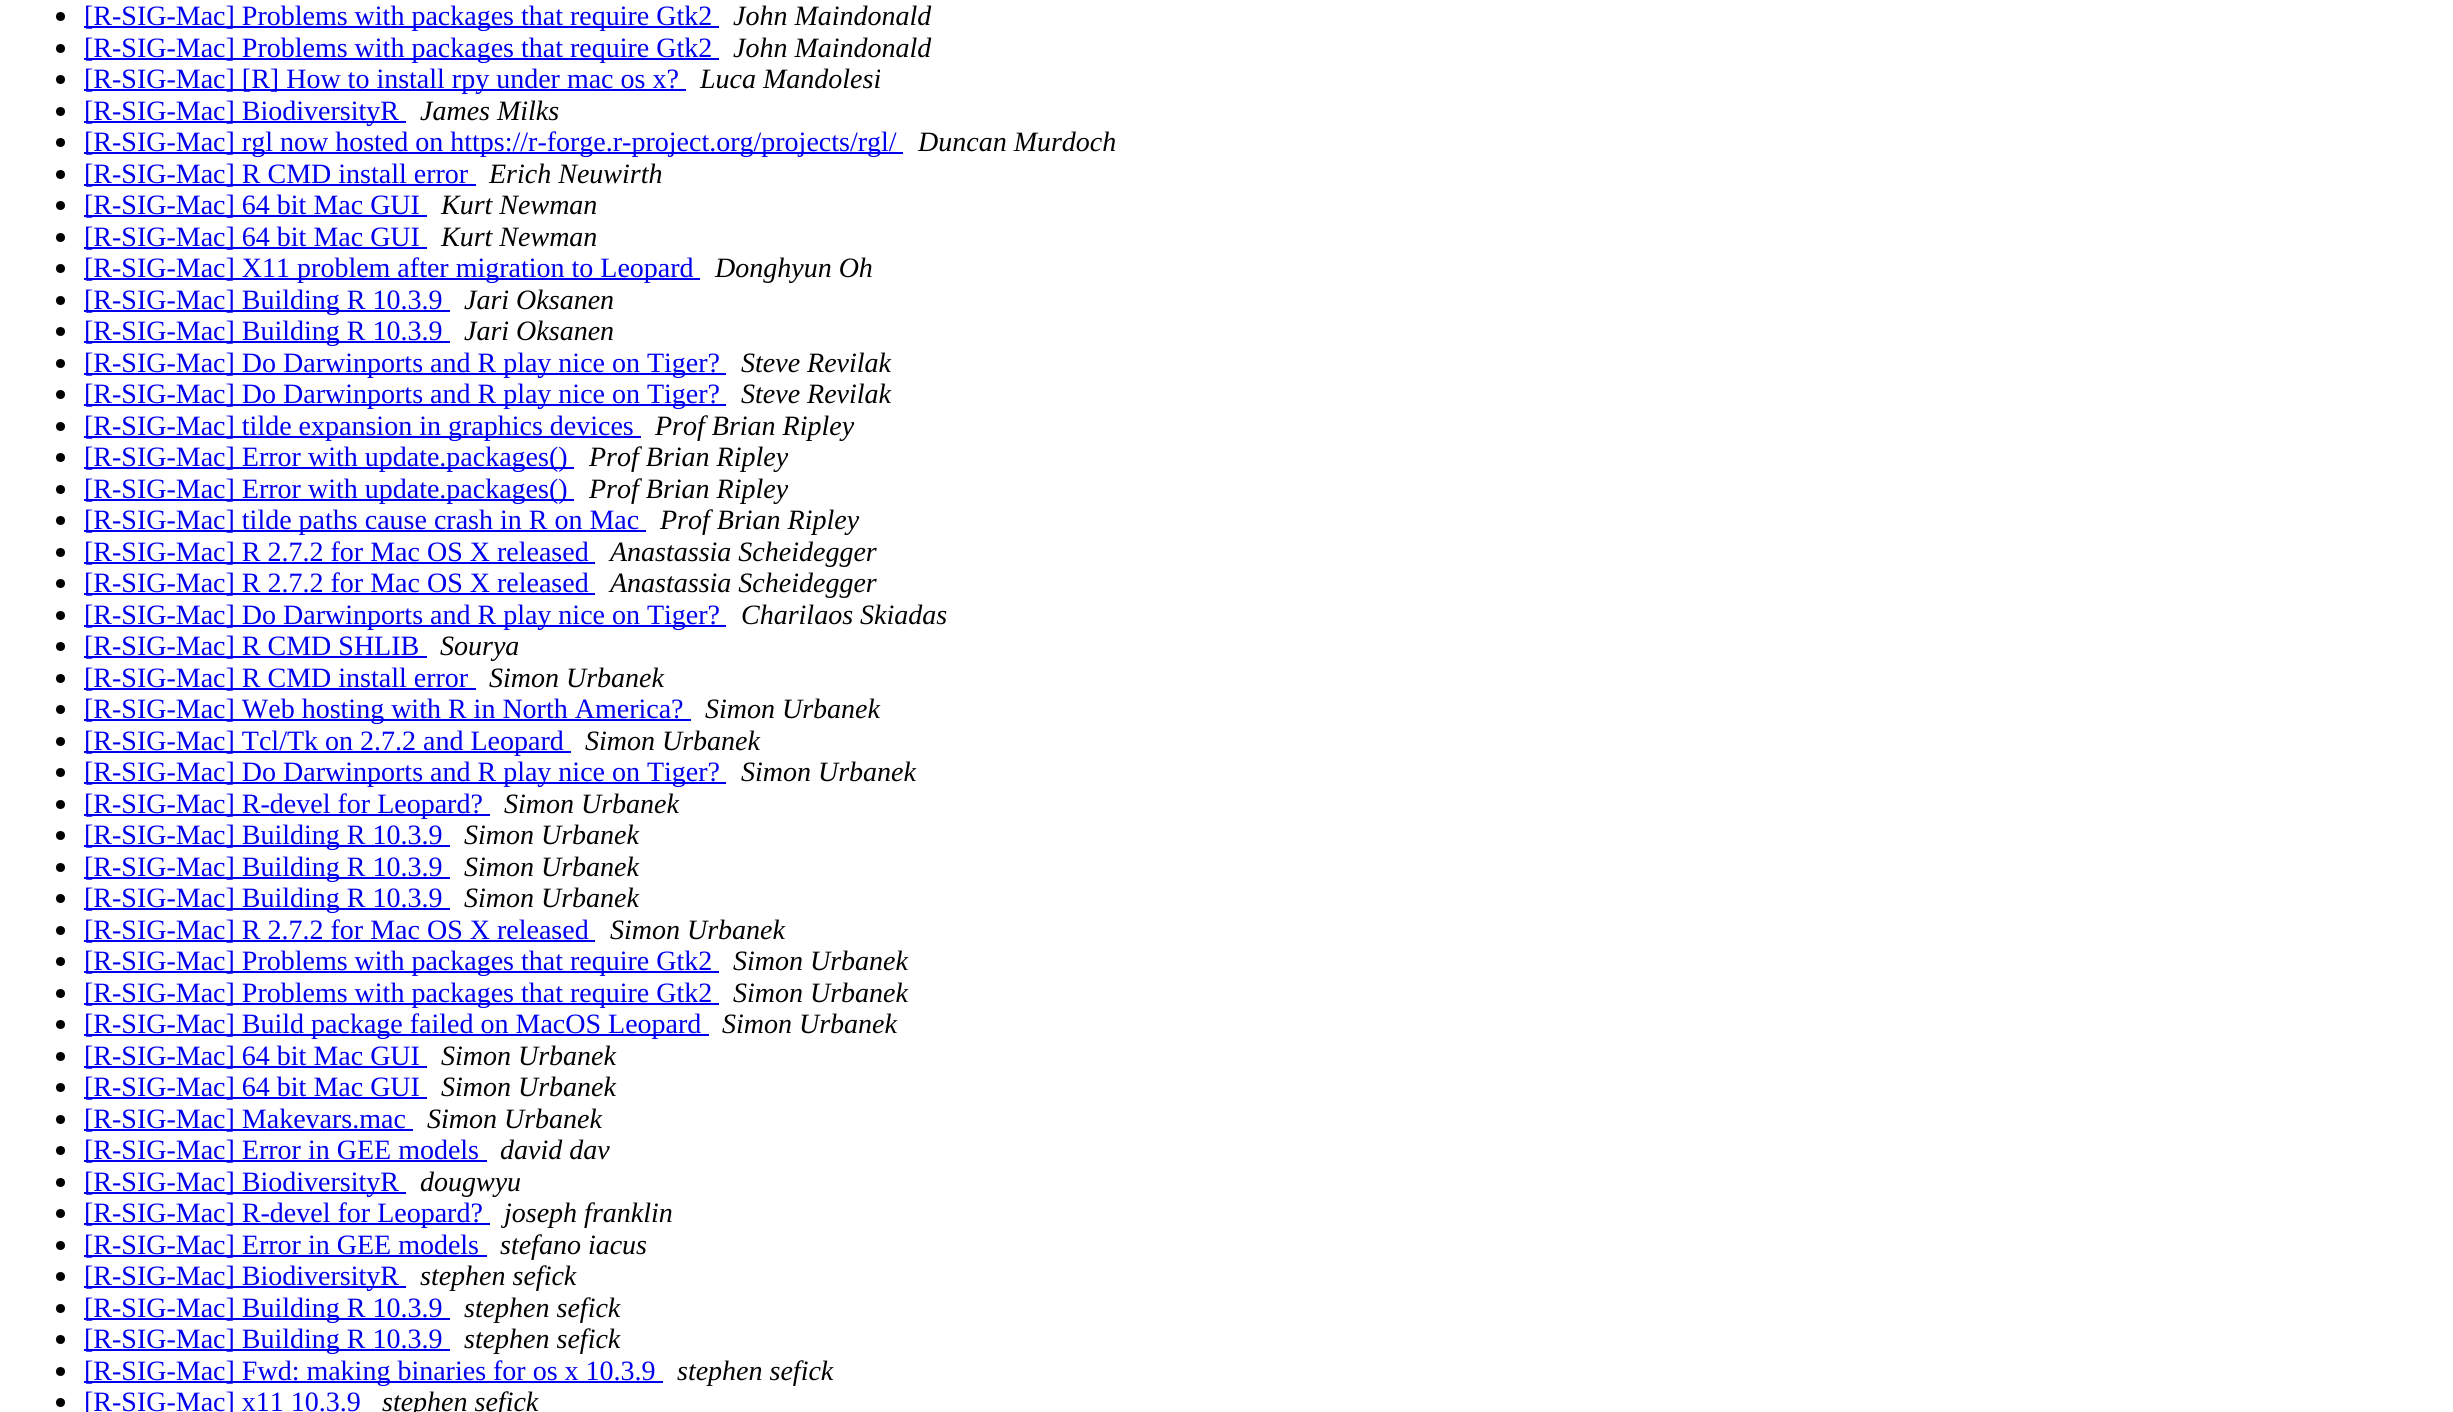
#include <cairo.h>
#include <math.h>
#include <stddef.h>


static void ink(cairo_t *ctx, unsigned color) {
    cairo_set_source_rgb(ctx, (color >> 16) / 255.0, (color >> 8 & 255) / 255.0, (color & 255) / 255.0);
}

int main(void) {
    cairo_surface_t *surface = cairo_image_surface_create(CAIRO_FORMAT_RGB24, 2453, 1412);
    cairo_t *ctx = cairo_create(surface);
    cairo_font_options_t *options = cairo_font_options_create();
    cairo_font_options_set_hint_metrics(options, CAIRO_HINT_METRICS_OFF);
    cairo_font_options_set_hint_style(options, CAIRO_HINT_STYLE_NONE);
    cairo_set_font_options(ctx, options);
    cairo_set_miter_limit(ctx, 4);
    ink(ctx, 0xFFFFFF);
    cairo_paint(ctx);
    ink(ctx, 0x000000);
    cairo_arc(ctx, 60.5, 16.5, 4.5, 0, 2 * M_PI);
    cairo_fill(ctx);
    ink(ctx, 0x0000EE);
    cairo_rectangle(ctx, 84, 26, 635, 2);
    cairo_fill(ctx);
    cairo_select_font_face(ctx, "Liberation Serif", CAIRO_FONT_SLANT_NORMAL, CAIRO_FONT_WEIGHT_NORMAL);
    cairo_set_font_size(ctx, 28);
    cairo_move_to(ctx, 84, 25);
    cairo_show_text(ctx, "[R-SIG-Mac] Problems with packages that require Gtk2");
    cairo_select_font_face(ctx, "Liberation Serif", CAIRO_FONT_SLANT_ITALIC, CAIRO_FONT_WEIGHT_NORMAL);
    ink(ctx, 0x000000);
    cairo_move_to(ctx, 733, 25);
    cairo_show_text(ctx, "John Maindonald");
    cairo_new_path(ctx);
    cairo_arc(ctx, 60.5, 48.5, 4.5, 0, 2 * M_PI);
    cairo_fill(ctx);
    ink(ctx, 0x0000EE);
    cairo_rectangle(ctx, 84, 58, 635, 2);
    cairo_fill(ctx);
    cairo_select_font_face(ctx, "Liberation Serif", CAIRO_FONT_SLANT_NORMAL, CAIRO_FONT_WEIGHT_NORMAL);
    cairo_move_to(ctx, 84, 57);
    cairo_show_text(ctx, "[R-SIG-Mac] Problems with packages that require Gtk2");
    cairo_select_font_face(ctx, "Liberation Serif", CAIRO_FONT_SLANT_ITALIC, CAIRO_FONT_WEIGHT_NORMAL);
    ink(ctx, 0x000000);
    cairo_move_to(ctx, 733, 57);
    cairo_show_text(ctx, "John Maindonald");
    cairo_new_path(ctx);
    cairo_arc(ctx, 60.5, 79.5, 4.5, 0, 2 * M_PI);
    cairo_fill(ctx);
    ink(ctx, 0x0000EE);
    cairo_rectangle(ctx, 84, 89, 602, 2);
    cairo_fill(ctx);
    cairo_select_font_face(ctx, "Liberation Serif", CAIRO_FONT_SLANT_NORMAL, CAIRO_FONT_WEIGHT_NORMAL);
    cairo_move_to(ctx, 84, 88);
    cairo_show_text(ctx, "[R-SIG-Mac] [R] How to install rpy under mac os x?");
    cairo_select_font_face(ctx, "Liberation Serif", CAIRO_FONT_SLANT_ITALIC, CAIRO_FONT_WEIGHT_NORMAL);
    ink(ctx, 0x000000);
    cairo_move_to(ctx, 700, 88);
    cairo_show_text(ctx, "Luca Mandolesi");
    cairo_new_path(ctx);
    cairo_arc(ctx, 60.5, 111.5, 4.5, 0, 2 * M_PI);
    cairo_fill(ctx);
    ink(ctx, 0x0000EE);
    cairo_rectangle(ctx, 84, 121, 322, 2);
    cairo_fill(ctx);
    cairo_select_font_face(ctx, "Liberation Serif", CAIRO_FONT_SLANT_NORMAL, CAIRO_FONT_WEIGHT_NORMAL);
    cairo_move_to(ctx, 84, 120);
    cairo_show_text(ctx, "[R-SIG-Mac] BiodiversityR");
    cairo_select_font_face(ctx, "Liberation Serif", CAIRO_FONT_SLANT_ITALIC, CAIRO_FONT_WEIGHT_NORMAL);
    ink(ctx, 0x000000);
    cairo_move_to(ctx, 420, 120);
    cairo_show_text(ctx, "James Milks");
    cairo_new_path(ctx);
    cairo_arc(ctx, 60.5, 142.5, 4.5, 0, 2 * M_PI);
    cairo_fill(ctx);
    ink(ctx, 0x0000EE);
    cairo_rectangle(ctx, 84, 152, 819, 2);
    cairo_fill(ctx);
    cairo_select_font_face(ctx, "Liberation Serif", CAIRO_FONT_SLANT_NORMAL, CAIRO_FONT_WEIGHT_NORMAL);
    cairo_move_to(ctx, 84, 151);
    cairo_show_text(ctx, "[R-SIG-Mac] rgl now hosted on https://r-forge.r-project.org/projects/rgl/");
    cairo_select_font_face(ctx, "Liberation Serif", CAIRO_FONT_SLANT_ITALIC, CAIRO_FONT_WEIGHT_NORMAL);
    ink(ctx, 0x000000);
    cairo_move_to(ctx, 918, 151);
    cairo_show_text(ctx, "Duncan Murdoch");
    cairo_new_path(ctx);
    cairo_arc(ctx, 60.5, 174.5, 4.5, 0, 2 * M_PI);
    cairo_fill(ctx);
    ink(ctx, 0x0000EE);
    cairo_rectangle(ctx, 84, 184, 392, 2);
    cairo_fill(ctx);
    cairo_select_font_face(ctx, "Liberation Serif", CAIRO_FONT_SLANT_NORMAL, CAIRO_FONT_WEIGHT_NORMAL);
    cairo_move_to(ctx, 84, 183);
    cairo_show_text(ctx, "[R-SIG-Mac] R CMD install error");
    cairo_select_font_face(ctx, "Liberation Serif", CAIRO_FONT_SLANT_ITALIC, CAIRO_FONT_WEIGHT_NORMAL);
    ink(ctx, 0x000000);
    cairo_move_to(ctx, 489, 183);
    cairo_show_text(ctx, "Erich Neuwirth");
    cairo_new_path(ctx);
    cairo_arc(ctx, 60.5, 205.5, 4.5, 0, 2 * M_PI);
    cairo_fill(ctx);
    ink(ctx, 0x0000EE);
    cairo_rectangle(ctx, 84, 215, 343, 2);
    cairo_fill(ctx);
    cairo_select_font_face(ctx, "Liberation Serif", CAIRO_FONT_SLANT_NORMAL, CAIRO_FONT_WEIGHT_NORMAL);
    cairo_move_to(ctx, 84, 214);
    cairo_show_text(ctx, "[R-SIG-Mac] 64 bit Mac GUI");
    cairo_select_font_face(ctx, "Liberation Serif", CAIRO_FONT_SLANT_ITALIC, CAIRO_FONT_WEIGHT_NORMAL);
    ink(ctx, 0x000000);
    cairo_move_to(ctx, 441, 214);
    cairo_show_text(ctx, "Kurt Newman");
    cairo_new_path(ctx);
    cairo_arc(ctx, 60.5, 237.5, 4.5, 0, 2 * M_PI);
    cairo_fill(ctx);
    ink(ctx, 0x0000EE);
    cairo_rectangle(ctx, 84, 247, 343, 2);
    cairo_fill(ctx);
    cairo_select_font_face(ctx, "Liberation Serif", CAIRO_FONT_SLANT_NORMAL, CAIRO_FONT_WEIGHT_NORMAL);
    cairo_move_to(ctx, 84, 246);
    cairo_show_text(ctx, "[R-SIG-Mac] 64 bit Mac GUI");
    cairo_select_font_face(ctx, "Liberation Serif", CAIRO_FONT_SLANT_ITALIC, CAIRO_FONT_WEIGHT_NORMAL);
    ink(ctx, 0x000000);
    cairo_move_to(ctx, 441, 246);
    cairo_show_text(ctx, "Kurt Newman");
    cairo_new_path(ctx);
    cairo_arc(ctx, 60.5, 268.5, 4.5, 0, 2 * M_PI);
    cairo_fill(ctx);
    ink(ctx, 0x0000EE);
    cairo_rectangle(ctx, 84, 278, 616, 2);
    cairo_fill(ctx);
    cairo_select_font_face(ctx, "Liberation Serif", CAIRO_FONT_SLANT_NORMAL, CAIRO_FONT_WEIGHT_NORMAL);
    cairo_move_to(ctx, 84, 277);
    cairo_show_text(ctx, "[R-SIG-Mac] X11 problem after migration to Leopard");
    cairo_select_font_face(ctx, "Liberation Serif", CAIRO_FONT_SLANT_ITALIC, CAIRO_FONT_WEIGHT_NORMAL);
    ink(ctx, 0x000000);
    cairo_move_to(ctx, 715, 277);
    cairo_show_text(ctx, "Donghyun Oh");
    cairo_new_path(ctx);
    cairo_arc(ctx, 60.5, 300.5, 4.5, 0, 2 * M_PI);
    cairo_fill(ctx);
    ink(ctx, 0x0000EE);
    cairo_rectangle(ctx, 84, 310, 366, 2);
    cairo_fill(ctx);
    cairo_select_font_face(ctx, "Liberation Serif", CAIRO_FONT_SLANT_NORMAL, CAIRO_FONT_WEIGHT_NORMAL);
    cairo_move_to(ctx, 84, 309);
    cairo_show_text(ctx, "[R-SIG-Mac] Building R 10.3.9");
    cairo_select_font_face(ctx, "Liberation Serif", CAIRO_FONT_SLANT_ITALIC, CAIRO_FONT_WEIGHT_NORMAL);
    ink(ctx, 0x000000);
    cairo_move_to(ctx, 464, 309);
    cairo_show_text(ctx, "Jari Oksanen");
    cairo_new_path(ctx);
    cairo_arc(ctx, 60.5, 331.5, 4.5, 0, 2 * M_PI);
    cairo_fill(ctx);
    ink(ctx, 0x0000EE);
    cairo_rectangle(ctx, 84, 341, 366, 2);
    cairo_fill(ctx);
    cairo_select_font_face(ctx, "Liberation Serif", CAIRO_FONT_SLANT_NORMAL, CAIRO_FONT_WEIGHT_NORMAL);
    cairo_move_to(ctx, 84, 340);
    cairo_show_text(ctx, "[R-SIG-Mac] Building R 10.3.9");
    cairo_select_font_face(ctx, "Liberation Serif", CAIRO_FONT_SLANT_ITALIC, CAIRO_FONT_WEIGHT_NORMAL);
    ink(ctx, 0x000000);
    cairo_move_to(ctx, 464, 340);
    cairo_show_text(ctx, "Jari Oksanen");
    cairo_new_path(ctx);
    cairo_arc(ctx, 60.5, 363.5, 4.5, 0, 2 * M_PI);
    cairo_fill(ctx);
    ink(ctx, 0x0000EE);
    cairo_rectangle(ctx, 84, 373, 642, 2);
    cairo_fill(ctx);
    cairo_select_font_face(ctx, "Liberation Serif", CAIRO_FONT_SLANT_NORMAL, CAIRO_FONT_WEIGHT_NORMAL);
    cairo_move_to(ctx, 84, 372);
    cairo_show_text(ctx, "[R-SIG-Mac] Do Darwinports and R play nice on Tiger?");
    cairo_select_font_face(ctx, "Liberation Serif", CAIRO_FONT_SLANT_ITALIC, CAIRO_FONT_WEIGHT_NORMAL);
    ink(ctx, 0x000000);
    cairo_move_to(ctx, 741, 372);
    cairo_show_text(ctx, "Steve Revilak");
    cairo_new_path(ctx);
    cairo_arc(ctx, 60.5, 394.5, 4.5, 0, 2 * M_PI);
    cairo_fill(ctx);
    ink(ctx, 0x0000EE);
    cairo_rectangle(ctx, 84, 404, 642, 2);
    cairo_fill(ctx);
    cairo_select_font_face(ctx, "Liberation Serif", CAIRO_FONT_SLANT_NORMAL, CAIRO_FONT_WEIGHT_NORMAL);
    cairo_move_to(ctx, 84, 403);
    cairo_show_text(ctx, "[R-SIG-Mac] Do Darwinports and R play nice on Tiger?");
    cairo_select_font_face(ctx, "Liberation Serif", CAIRO_FONT_SLANT_ITALIC, CAIRO_FONT_WEIGHT_NORMAL);
    ink(ctx, 0x000000);
    cairo_move_to(ctx, 741, 403);
    cairo_show_text(ctx, "Steve Revilak");
    cairo_new_path(ctx);
    cairo_arc(ctx, 60.5, 426.5, 4.5, 0, 2 * M_PI);
    cairo_fill(ctx);
    ink(ctx, 0x0000EE);
    cairo_rectangle(ctx, 84, 436, 557, 2);
    cairo_fill(ctx);
    cairo_select_font_face(ctx, "Liberation Serif", CAIRO_FONT_SLANT_NORMAL, CAIRO_FONT_WEIGHT_NORMAL);
    cairo_move_to(ctx, 84, 435);
    cairo_show_text(ctx, "[R-SIG-Mac] tilde expansion in graphics devices");
    cairo_select_font_face(ctx, "Liberation Serif", CAIRO_FONT_SLANT_ITALIC, CAIRO_FONT_WEIGHT_NORMAL);
    ink(ctx, 0x000000);
    cairo_move_to(ctx, 655, 435);
    cairo_show_text(ctx, "Prof Brian Ripley");
    cairo_new_path(ctx);
    cairo_arc(ctx, 60.5, 457.5, 4.5, 0, 2 * M_PI);
    cairo_fill(ctx);
    ink(ctx, 0x0000EE);
    cairo_rectangle(ctx, 84, 467, 490, 2);
    cairo_fill(ctx);
    cairo_select_font_face(ctx, "Liberation Serif", CAIRO_FONT_SLANT_NORMAL, CAIRO_FONT_WEIGHT_NORMAL);
    cairo_move_to(ctx, 84, 466);
    cairo_show_text(ctx, "[R-SIG-Mac] Error with update.packages()");
    cairo_select_font_face(ctx, "Liberation Serif", CAIRO_FONT_SLANT_ITALIC, CAIRO_FONT_WEIGHT_NORMAL);
    ink(ctx, 0x000000);
    cairo_move_to(ctx, 589, 466);
    cairo_show_text(ctx, "Prof Brian Ripley");
    cairo_new_path(ctx);
    cairo_arc(ctx, 60.5, 489.5, 4.5, 0, 2 * M_PI);
    cairo_fill(ctx);
    ink(ctx, 0x0000EE);
    cairo_rectangle(ctx, 84, 499, 490, 2);
    cairo_fill(ctx);
    cairo_select_font_face(ctx, "Liberation Serif", CAIRO_FONT_SLANT_NORMAL, CAIRO_FONT_WEIGHT_NORMAL);
    cairo_move_to(ctx, 84, 498);
    cairo_show_text(ctx, "[R-SIG-Mac] Error with update.packages()");
    cairo_select_font_face(ctx, "Liberation Serif", CAIRO_FONT_SLANT_ITALIC, CAIRO_FONT_WEIGHT_NORMAL);
    ink(ctx, 0x000000);
    cairo_move_to(ctx, 589, 498);
    cairo_show_text(ctx, "Prof Brian Ripley");
    cairo_new_path(ctx);
    cairo_arc(ctx, 60.5, 520.5, 4.5, 0, 2 * M_PI);
    cairo_fill(ctx);
    ink(ctx, 0x0000EE);
    cairo_rectangle(ctx, 84, 530, 562, 2);
    cairo_fill(ctx);
    cairo_select_font_face(ctx, "Liberation Serif", CAIRO_FONT_SLANT_NORMAL, CAIRO_FONT_WEIGHT_NORMAL);
    cairo_move_to(ctx, 84, 529);
    cairo_show_text(ctx, "[R-SIG-Mac] tilde paths cause crash in R on Mac");
    cairo_select_font_face(ctx, "Liberation Serif", CAIRO_FONT_SLANT_ITALIC, CAIRO_FONT_WEIGHT_NORMAL);
    ink(ctx, 0x000000);
    cairo_move_to(ctx, 660, 529);
    cairo_show_text(ctx, "Prof Brian Ripley");
    cairo_new_path(ctx);
    cairo_arc(ctx, 60.5, 552.5, 4.5, 0, 2 * M_PI);
    cairo_fill(ctx);
    ink(ctx, 0x0000EE);
    cairo_rectangle(ctx, 84, 562, 511, 2);
    cairo_fill(ctx);
    cairo_select_font_face(ctx, "Liberation Serif", CAIRO_FONT_SLANT_NORMAL, CAIRO_FONT_WEIGHT_NORMAL);
    cairo_move_to(ctx, 84, 561);
    cairo_show_text(ctx, "[R-SIG-Mac] R 2.7.2 for Mac OS X released");
    cairo_select_font_face(ctx, "Liberation Serif", CAIRO_FONT_SLANT_ITALIC, CAIRO_FONT_WEIGHT_NORMAL);
    ink(ctx, 0x000000);
    cairo_move_to(ctx, 610, 561);
    cairo_show_text(ctx, "Anastassia Scheidegger");
    cairo_new_path(ctx);
    cairo_arc(ctx, 60.5, 583.5, 4.5, 0, 2 * M_PI);
    cairo_fill(ctx);
    ink(ctx, 0x0000EE);
    cairo_rectangle(ctx, 84, 593, 511, 2);
    cairo_fill(ctx);
    cairo_select_font_face(ctx, "Liberation Serif", CAIRO_FONT_SLANT_NORMAL, CAIRO_FONT_WEIGHT_NORMAL);
    cairo_move_to(ctx, 84, 592);
    cairo_show_text(ctx, "[R-SIG-Mac] R 2.7.2 for Mac OS X released");
    cairo_select_font_face(ctx, "Liberation Serif", CAIRO_FONT_SLANT_ITALIC, CAIRO_FONT_WEIGHT_NORMAL);
    ink(ctx, 0x000000);
    cairo_move_to(ctx, 610, 592);
    cairo_show_text(ctx, "Anastassia Scheidegger");
    cairo_new_path(ctx);
    cairo_arc(ctx, 60.5, 615.5, 4.5, 0, 2 * M_PI);
    cairo_fill(ctx);
    ink(ctx, 0x0000EE);
    cairo_rectangle(ctx, 84, 625, 642, 2);
    cairo_fill(ctx);
    cairo_select_font_face(ctx, "Liberation Serif", CAIRO_FONT_SLANT_NORMAL, CAIRO_FONT_WEIGHT_NORMAL);
    cairo_move_to(ctx, 84, 624);
    cairo_show_text(ctx, "[R-SIG-Mac] Do Darwinports and R play nice on Tiger?");
    cairo_select_font_face(ctx, "Liberation Serif", CAIRO_FONT_SLANT_ITALIC, CAIRO_FONT_WEIGHT_NORMAL);
    ink(ctx, 0x000000);
    cairo_move_to(ctx, 741, 624);
    cairo_show_text(ctx, "Charilaos Skiadas");
    cairo_new_path(ctx);
    cairo_arc(ctx, 60.5, 646.5, 4.5, 0, 2 * M_PI);
    cairo_fill(ctx);
    ink(ctx, 0x0000EE);
    cairo_rectangle(ctx, 84, 656, 343, 2);
    cairo_fill(ctx);
    cairo_select_font_face(ctx, "Liberation Serif", CAIRO_FONT_SLANT_NORMAL, CAIRO_FONT_WEIGHT_NORMAL);
    cairo_move_to(ctx, 84, 655);
    cairo_show_text(ctx, "[R-SIG-Mac] R CMD SHLIB");
    cairo_select_font_face(ctx, "Liberation Serif", CAIRO_FONT_SLANT_ITALIC, CAIRO_FONT_WEIGHT_NORMAL);
    ink(ctx, 0x000000);
    cairo_move_to(ctx, 440, 655);
    cairo_show_text(ctx, "Sourya");
    cairo_new_path(ctx);
    cairo_arc(ctx, 60.5, 678.5, 4.5, 0, 2 * M_PI);
    cairo_fill(ctx);
    ink(ctx, 0x0000EE);
    cairo_rectangle(ctx, 84, 688, 392, 2);
    cairo_fill(ctx);
    cairo_select_font_face(ctx, "Liberation Serif", CAIRO_FONT_SLANT_NORMAL, CAIRO_FONT_WEIGHT_NORMAL);
    cairo_move_to(ctx, 84, 687);
    cairo_show_text(ctx, "[R-SIG-Mac] R CMD install error");
    cairo_select_font_face(ctx, "Liberation Serif", CAIRO_FONT_SLANT_ITALIC, CAIRO_FONT_WEIGHT_NORMAL);
    ink(ctx, 0x000000);
    cairo_move_to(ctx, 489, 687);
    cairo_show_text(ctx, "Simon Urbanek");
    cairo_new_path(ctx);
    cairo_arc(ctx, 60.5, 709.5, 4.5, 0, 2 * M_PI);
    cairo_fill(ctx);
    ink(ctx, 0x0000EE);
    cairo_rectangle(ctx, 84, 719, 607, 2);
    cairo_fill(ctx);
    cairo_select_font_face(ctx, "Liberation Serif", CAIRO_FONT_SLANT_NORMAL, CAIRO_FONT_WEIGHT_NORMAL);
    cairo_move_to(ctx, 84, 718);
    cairo_show_text(ctx, "[R-SIG-Mac] Web hosting with R in North America?");
    cairo_select_font_face(ctx, "Liberation Serif", CAIRO_FONT_SLANT_ITALIC, CAIRO_FONT_WEIGHT_NORMAL);
    ink(ctx, 0x000000);
    cairo_move_to(ctx, 705, 718);
    cairo_show_text(ctx, "Simon Urbanek");
    cairo_new_path(ctx);
    cairo_arc(ctx, 60.5, 741.5, 4.5, 0, 2 * M_PI);
    cairo_fill(ctx);
    ink(ctx, 0x0000EE);
    cairo_rectangle(ctx, 84, 751, 487, 2);
    cairo_fill(ctx);
    cairo_select_font_face(ctx, "Liberation Serif", CAIRO_FONT_SLANT_NORMAL, CAIRO_FONT_WEIGHT_NORMAL);
    cairo_move_to(ctx, 84, 750);
    cairo_show_text(ctx, "[R-SIG-Mac] Tcl/Tk on 2.7.2 and Leopard");
    cairo_select_font_face(ctx, "Liberation Serif", CAIRO_FONT_SLANT_ITALIC, CAIRO_FONT_WEIGHT_NORMAL);
    ink(ctx, 0x000000);
    cairo_move_to(ctx, 585, 750);
    cairo_show_text(ctx, "Simon Urbanek");
    cairo_new_path(ctx);
    cairo_arc(ctx, 60.5, 772.5, 4.5, 0, 2 * M_PI);
    cairo_fill(ctx);
    ink(ctx, 0x0000EE);
    cairo_rectangle(ctx, 84, 782, 642, 2);
    cairo_fill(ctx);
    cairo_select_font_face(ctx, "Liberation Serif", CAIRO_FONT_SLANT_NORMAL, CAIRO_FONT_WEIGHT_NORMAL);
    cairo_move_to(ctx, 84, 781);
    cairo_show_text(ctx, "[R-SIG-Mac] Do Darwinports and R play nice on Tiger?");
    cairo_select_font_face(ctx, "Liberation Serif", CAIRO_FONT_SLANT_ITALIC, CAIRO_FONT_WEIGHT_NORMAL);
    ink(ctx, 0x000000);
    cairo_move_to(ctx, 741, 781);
    cairo_show_text(ctx, "Simon Urbanek");
    cairo_new_path(ctx);
    cairo_arc(ctx, 60.5, 804.5, 4.5, 0, 2 * M_PI);
    cairo_fill(ctx);
    ink(ctx, 0x0000EE);
    cairo_rectangle(ctx, 84, 814, 406, 2);
    cairo_fill(ctx);
    cairo_select_font_face(ctx, "Liberation Serif", CAIRO_FONT_SLANT_NORMAL, CAIRO_FONT_WEIGHT_NORMAL);
    cairo_move_to(ctx, 84, 813);
    cairo_show_text(ctx, "[R-SIG-Mac] R-devel for Leopard?");
    cairo_select_font_face(ctx, "Liberation Serif", CAIRO_FONT_SLANT_ITALIC, CAIRO_FONT_WEIGHT_NORMAL);
    ink(ctx, 0x000000);
    cairo_move_to(ctx, 504, 813);
    cairo_show_text(ctx, "Simon Urbanek");
    cairo_new_path(ctx);
    cairo_arc(ctx, 60.5, 835.5, 4.5, 0, 2 * M_PI);
    cairo_fill(ctx);
    ink(ctx, 0x0000EE);
    cairo_rectangle(ctx, 84, 845, 366, 2);
    cairo_fill(ctx);
    cairo_select_font_face(ctx, "Liberation Serif", CAIRO_FONT_SLANT_NORMAL, CAIRO_FONT_WEIGHT_NORMAL);
    cairo_move_to(ctx, 84, 844);
    cairo_show_text(ctx, "[R-SIG-Mac] Building R 10.3.9");
    cairo_select_font_face(ctx, "Liberation Serif", CAIRO_FONT_SLANT_ITALIC, CAIRO_FONT_WEIGHT_NORMAL);
    ink(ctx, 0x000000);
    cairo_move_to(ctx, 464, 844);
    cairo_show_text(ctx, "Simon Urbanek");
    cairo_new_path(ctx);
    cairo_arc(ctx, 60.5, 867.5, 4.5, 0, 2 * M_PI);
    cairo_fill(ctx);
    ink(ctx, 0x0000EE);
    cairo_rectangle(ctx, 84, 877, 366, 2);
    cairo_fill(ctx);
    cairo_select_font_face(ctx, "Liberation Serif", CAIRO_FONT_SLANT_NORMAL, CAIRO_FONT_WEIGHT_NORMAL);
    cairo_move_to(ctx, 84, 876);
    cairo_show_text(ctx, "[R-SIG-Mac] Building R 10.3.9");
    cairo_select_font_face(ctx, "Liberation Serif", CAIRO_FONT_SLANT_ITALIC, CAIRO_FONT_WEIGHT_NORMAL);
    ink(ctx, 0x000000);
    cairo_move_to(ctx, 464, 876);
    cairo_show_text(ctx, "Simon Urbanek");
    cairo_new_path(ctx);
    cairo_arc(ctx, 60.5, 898.5, 4.5, 0, 2 * M_PI);
    cairo_fill(ctx);
    ink(ctx, 0x0000EE);
    cairo_rectangle(ctx, 84, 908, 366, 2);
    cairo_fill(ctx);
    cairo_select_font_face(ctx, "Liberation Serif", CAIRO_FONT_SLANT_NORMAL, CAIRO_FONT_WEIGHT_NORMAL);
    cairo_move_to(ctx, 84, 907);
    cairo_show_text(ctx, "[R-SIG-Mac] Building R 10.3.9");
    cairo_select_font_face(ctx, "Liberation Serif", CAIRO_FONT_SLANT_ITALIC, CAIRO_FONT_WEIGHT_NORMAL);
    ink(ctx, 0x000000);
    cairo_move_to(ctx, 464, 907);
    cairo_show_text(ctx, "Simon Urbanek");
    cairo_new_path(ctx);
    cairo_arc(ctx, 60.5, 930.5, 4.5, 0, 2 * M_PI);
    cairo_fill(ctx);
    ink(ctx, 0x0000EE);
    cairo_rectangle(ctx, 84, 940, 511, 2);
    cairo_fill(ctx);
    cairo_select_font_face(ctx, "Liberation Serif", CAIRO_FONT_SLANT_NORMAL, CAIRO_FONT_WEIGHT_NORMAL);
    cairo_move_to(ctx, 84, 939);
    cairo_show_text(ctx, "[R-SIG-Mac] R 2.7.2 for Mac OS X released");
    cairo_select_font_face(ctx, "Liberation Serif", CAIRO_FONT_SLANT_ITALIC, CAIRO_FONT_WEIGHT_NORMAL);
    ink(ctx, 0x000000);
    cairo_move_to(ctx, 610, 939);
    cairo_show_text(ctx, "Simon Urbanek");
    cairo_new_path(ctx);
    cairo_arc(ctx, 60.5, 961.5, 4.5, 0, 2 * M_PI);
    cairo_fill(ctx);
    ink(ctx, 0x0000EE);
    cairo_rectangle(ctx, 84, 971, 635, 2);
    cairo_fill(ctx);
    cairo_select_font_face(ctx, "Liberation Serif", CAIRO_FONT_SLANT_NORMAL, CAIRO_FONT_WEIGHT_NORMAL);
    cairo_move_to(ctx, 84, 970);
    cairo_show_text(ctx, "[R-SIG-Mac] Problems with packages that require Gtk2");
    cairo_select_font_face(ctx, "Liberation Serif", CAIRO_FONT_SLANT_ITALIC, CAIRO_FONT_WEIGHT_NORMAL);
    ink(ctx, 0x000000);
    cairo_move_to(ctx, 733, 970);
    cairo_show_text(ctx, "Simon Urbanek");
    cairo_new_path(ctx);
    cairo_arc(ctx, 60.5, 993.5, 4.5, 0, 2 * M_PI);
    cairo_fill(ctx);
    ink(ctx, 0x0000EE);
    cairo_rectangle(ctx, 84, 1003, 635, 2);
    cairo_fill(ctx);
    cairo_select_font_face(ctx, "Liberation Serif", CAIRO_FONT_SLANT_NORMAL, CAIRO_FONT_WEIGHT_NORMAL);
    cairo_move_to(ctx, 84, 1002);
    cairo_show_text(ctx, "[R-SIG-Mac] Problems with packages that require Gtk2");
    cairo_select_font_face(ctx, "Liberation Serif", CAIRO_FONT_SLANT_ITALIC, CAIRO_FONT_WEIGHT_NORMAL);
    ink(ctx, 0x000000);
    cairo_move_to(ctx, 733, 1002);
    cairo_show_text(ctx, "Simon Urbanek");
    cairo_new_path(ctx);
    cairo_arc(ctx, 60.5, 1024.5, 4.5, 0, 2 * M_PI);
    cairo_fill(ctx);
    ink(ctx, 0x0000EE);
    cairo_rectangle(ctx, 84, 1034, 625, 2);
    cairo_fill(ctx);
    cairo_select_font_face(ctx, "Liberation Serif", CAIRO_FONT_SLANT_NORMAL, CAIRO_FONT_WEIGHT_NORMAL);
    cairo_move_to(ctx, 84, 1033);
    cairo_show_text(ctx, "[R-SIG-Mac] Build package failed on MacOS Leopard");
    cairo_select_font_face(ctx, "Liberation Serif", CAIRO_FONT_SLANT_ITALIC, CAIRO_FONT_WEIGHT_NORMAL);
    ink(ctx, 0x000000);
    cairo_move_to(ctx, 722, 1033);
    cairo_show_text(ctx, "Simon Urbanek");
    cairo_new_path(ctx);
    cairo_arc(ctx, 60.5, 1056.5, 4.5, 0, 2 * M_PI);
    cairo_fill(ctx);
    ink(ctx, 0x0000EE);
    cairo_rectangle(ctx, 84, 1066, 343, 2);
    cairo_fill(ctx);
    cairo_select_font_face(ctx, "Liberation Serif", CAIRO_FONT_SLANT_NORMAL, CAIRO_FONT_WEIGHT_NORMAL);
    cairo_move_to(ctx, 84, 1065);
    cairo_show_text(ctx, "[R-SIG-Mac] 64 bit Mac GUI");
    cairo_select_font_face(ctx, "Liberation Serif", CAIRO_FONT_SLANT_ITALIC, CAIRO_FONT_WEIGHT_NORMAL);
    ink(ctx, 0x000000);
    cairo_move_to(ctx, 441, 1065);
    cairo_show_text(ctx, "Simon Urbanek");
    cairo_new_path(ctx);
    cairo_arc(ctx, 60.5, 1087.5, 4.5, 0, 2 * M_PI);
    cairo_fill(ctx);
    ink(ctx, 0x0000EE);
    cairo_rectangle(ctx, 84, 1097, 343, 2);
    cairo_fill(ctx);
    cairo_select_font_face(ctx, "Liberation Serif", CAIRO_FONT_SLANT_NORMAL, CAIRO_FONT_WEIGHT_NORMAL);
    cairo_move_to(ctx, 84, 1096);
    cairo_show_text(ctx, "[R-SIG-Mac] 64 bit Mac GUI");
    cairo_select_font_face(ctx, "Liberation Serif", CAIRO_FONT_SLANT_ITALIC, CAIRO_FONT_WEIGHT_NORMAL);
    ink(ctx, 0x000000);
    cairo_move_to(ctx, 441, 1096);
    cairo_show_text(ctx, "Simon Urbanek");
    cairo_new_path(ctx);
    cairo_arc(ctx, 60.5, 1119.5, 4.5, 0, 2 * M_PI);
    cairo_fill(ctx);
    ink(ctx, 0x0000EE);
    cairo_rectangle(ctx, 84, 1129, 329, 2);
    cairo_fill(ctx);
    cairo_select_font_face(ctx, "Liberation Serif", CAIRO_FONT_SLANT_NORMAL, CAIRO_FONT_WEIGHT_NORMAL);
    cairo_move_to(ctx, 84, 1128);
    cairo_show_text(ctx, "[R-SIG-Mac] Makevars.mac");
    cairo_select_font_face(ctx, "Liberation Serif", CAIRO_FONT_SLANT_ITALIC, CAIRO_FONT_WEIGHT_NORMAL);
    ink(ctx, 0x000000);
    cairo_move_to(ctx, 427, 1128);
    cairo_show_text(ctx, "Simon Urbanek");
    cairo_new_path(ctx);
    cairo_arc(ctx, 60.5, 1150.5, 4.5, 0, 2 * M_PI);
    cairo_fill(ctx);
    ink(ctx, 0x0000EE);
    cairo_rectangle(ctx, 84, 1160, 403, 2);
    cairo_fill(ctx);
    cairo_select_font_face(ctx, "Liberation Serif", CAIRO_FONT_SLANT_NORMAL, CAIRO_FONT_WEIGHT_NORMAL);
    cairo_move_to(ctx, 84, 1159);
    cairo_show_text(ctx, "[R-SIG-Mac] Error in GEE models");
    cairo_select_font_face(ctx, "Liberation Serif", CAIRO_FONT_SLANT_ITALIC, CAIRO_FONT_WEIGHT_NORMAL);
    ink(ctx, 0x000000);
    cairo_move_to(ctx, 500, 1159);
    cairo_show_text(ctx, "david dav");
    cairo_new_path(ctx);
    cairo_arc(ctx, 60.5, 1182.5, 4.5, 0, 2 * M_PI);
    cairo_fill(ctx);
    ink(ctx, 0x0000EE);
    cairo_rectangle(ctx, 84, 1192, 322, 2);
    cairo_fill(ctx);
    cairo_select_font_face(ctx, "Liberation Serif", CAIRO_FONT_SLANT_NORMAL, CAIRO_FONT_WEIGHT_NORMAL);
    cairo_move_to(ctx, 84, 1191);
    cairo_show_text(ctx, "[R-SIG-Mac] BiodiversityR");
    cairo_select_font_face(ctx, "Liberation Serif", CAIRO_FONT_SLANT_ITALIC, CAIRO_FONT_WEIGHT_NORMAL);
    ink(ctx, 0x000000);
    cairo_move_to(ctx, 420, 1191);
    cairo_show_text(ctx, "dougwyu");
    cairo_new_path(ctx);
    cairo_arc(ctx, 60.5, 1213.5, 4.5, 0, 2 * M_PI);
    cairo_fill(ctx);
    ink(ctx, 0x0000EE);
    cairo_rectangle(ctx, 84, 1223, 406, 2);
    cairo_fill(ctx);
    cairo_select_font_face(ctx, "Liberation Serif", CAIRO_FONT_SLANT_NORMAL, CAIRO_FONT_WEIGHT_NORMAL);
    cairo_move_to(ctx, 84, 1222);
    cairo_show_text(ctx, "[R-SIG-Mac] R-devel for Leopard?");
    cairo_select_font_face(ctx, "Liberation Serif", CAIRO_FONT_SLANT_ITALIC, CAIRO_FONT_WEIGHT_NORMAL);
    ink(ctx, 0x000000);
    cairo_move_to(ctx, 504, 1222);
    cairo_show_text(ctx, "joseph franklin");
    cairo_new_path(ctx);
    cairo_arc(ctx, 60.5, 1245.5, 4.5, 0, 2 * M_PI);
    cairo_fill(ctx);
    ink(ctx, 0x0000EE);
    cairo_rectangle(ctx, 84, 1255, 403, 2);
    cairo_fill(ctx);
    cairo_select_font_face(ctx, "Liberation Serif", CAIRO_FONT_SLANT_NORMAL, CAIRO_FONT_WEIGHT_NORMAL);
    cairo_move_to(ctx, 84, 1254);
    cairo_show_text(ctx, "[R-SIG-Mac] Error in GEE models");
    cairo_select_font_face(ctx, "Liberation Serif", CAIRO_FONT_SLANT_ITALIC, CAIRO_FONT_WEIGHT_NORMAL);
    ink(ctx, 0x000000);
    cairo_move_to(ctx, 500, 1254);
    cairo_show_text(ctx, "stefano iacus");
    cairo_new_path(ctx);
    cairo_arc(ctx, 60.5, 1276.5, 4.5, 0, 2 * M_PI);
    cairo_fill(ctx);
    ink(ctx, 0x0000EE);
    cairo_rectangle(ctx, 84, 1286, 322, 2);
    cairo_fill(ctx);
    cairo_select_font_face(ctx, "Liberation Serif", CAIRO_FONT_SLANT_NORMAL, CAIRO_FONT_WEIGHT_NORMAL);
    cairo_move_to(ctx, 84, 1285);
    cairo_show_text(ctx, "[R-SIG-Mac] BiodiversityR");
    cairo_select_font_face(ctx, "Liberation Serif", CAIRO_FONT_SLANT_ITALIC, CAIRO_FONT_WEIGHT_NORMAL);
    ink(ctx, 0x000000);
    cairo_move_to(ctx, 420, 1285);
    cairo_show_text(ctx, "stephen sefick");
    cairo_new_path(ctx);
    cairo_arc(ctx, 60.5, 1308.5, 4.5, 0, 2 * M_PI);
    cairo_fill(ctx);
    ink(ctx, 0x0000EE);
    cairo_rectangle(ctx, 84, 1318, 366, 2);
    cairo_fill(ctx);
    cairo_select_font_face(ctx, "Liberation Serif", CAIRO_FONT_SLANT_NORMAL, CAIRO_FONT_WEIGHT_NORMAL);
    cairo_move_to(ctx, 84, 1317);
    cairo_show_text(ctx, "[R-SIG-Mac] Building R 10.3.9");
    cairo_select_font_face(ctx, "Liberation Serif", CAIRO_FONT_SLANT_ITALIC, CAIRO_FONT_WEIGHT_NORMAL);
    ink(ctx, 0x000000);
    cairo_move_to(ctx, 464, 1317);
    cairo_show_text(ctx, "stephen sefick");
    cairo_new_path(ctx);
    cairo_arc(ctx, 60.5, 1339.5, 4.5, 0, 2 * M_PI);
    cairo_fill(ctx);
    ink(ctx, 0x0000EE);
    cairo_rectangle(ctx, 84, 1349, 366, 2);
    cairo_fill(ctx);
    cairo_select_font_face(ctx, "Liberation Serif", CAIRO_FONT_SLANT_NORMAL, CAIRO_FONT_WEIGHT_NORMAL);
    cairo_move_to(ctx, 84, 1348);
    cairo_show_text(ctx, "[R-SIG-Mac] Building R 10.3.9");
    cairo_select_font_face(ctx, "Liberation Serif", CAIRO_FONT_SLANT_ITALIC, CAIRO_FONT_WEIGHT_NORMAL);
    ink(ctx, 0x000000);
    cairo_move_to(ctx, 464, 1348);
    cairo_show_text(ctx, "stephen sefick");
    cairo_new_path(ctx);
    cairo_arc(ctx, 60.5, 1371.5, 4.5, 0, 2 * M_PI);
    cairo_fill(ctx);
    ink(ctx, 0x0000EE);
    cairo_rectangle(ctx, 84, 1381, 579, 2);
    cairo_fill(ctx);
    cairo_select_font_face(ctx, "Liberation Serif", CAIRO_FONT_SLANT_NORMAL, CAIRO_FONT_WEIGHT_NORMAL);
    cairo_move_to(ctx, 84, 1380);
    cairo_show_text(ctx, "[R-SIG-Mac] Fwd: making binaries for os x 10.3.9");
    cairo_select_font_face(ctx, "Liberation Serif", CAIRO_FONT_SLANT_ITALIC, CAIRO_FONT_WEIGHT_NORMAL);
    ink(ctx, 0x000000);
    cairo_move_to(ctx, 677, 1380);
    cairo_show_text(ctx, "stephen sefick");
    cairo_new_path(ctx);
    cairo_arc(ctx, 60.5, 1402.5, 4.5, 0, 2 * M_PI);
    cairo_fill(ctx);
    cairo_select_font_face(ctx, "Liberation Serif", CAIRO_FONT_SLANT_NORMAL, CAIRO_FONT_WEIGHT_NORMAL);
    ink(ctx, 0x0000EE);
    cairo_move_to(ctx, 84, 1411);
    cairo_show_text(ctx, "[R-SIG-Mac] x11 10.3.9");
    cairo_select_font_face(ctx, "Liberation Serif", CAIRO_FONT_SLANT_ITALIC, CAIRO_FONT_WEIGHT_NORMAL);
    ink(ctx, 0x000000);
    cairo_move_to(ctx, 382, 1411);
    cairo_show_text(ctx, "stephen sefick");
    cairo_surface_write_to_png(surface, "image.png");
    cairo_font_options_destroy(options);
    cairo_destroy(ctx);
    cairo_surface_destroy(surface);
    return 0;
}
